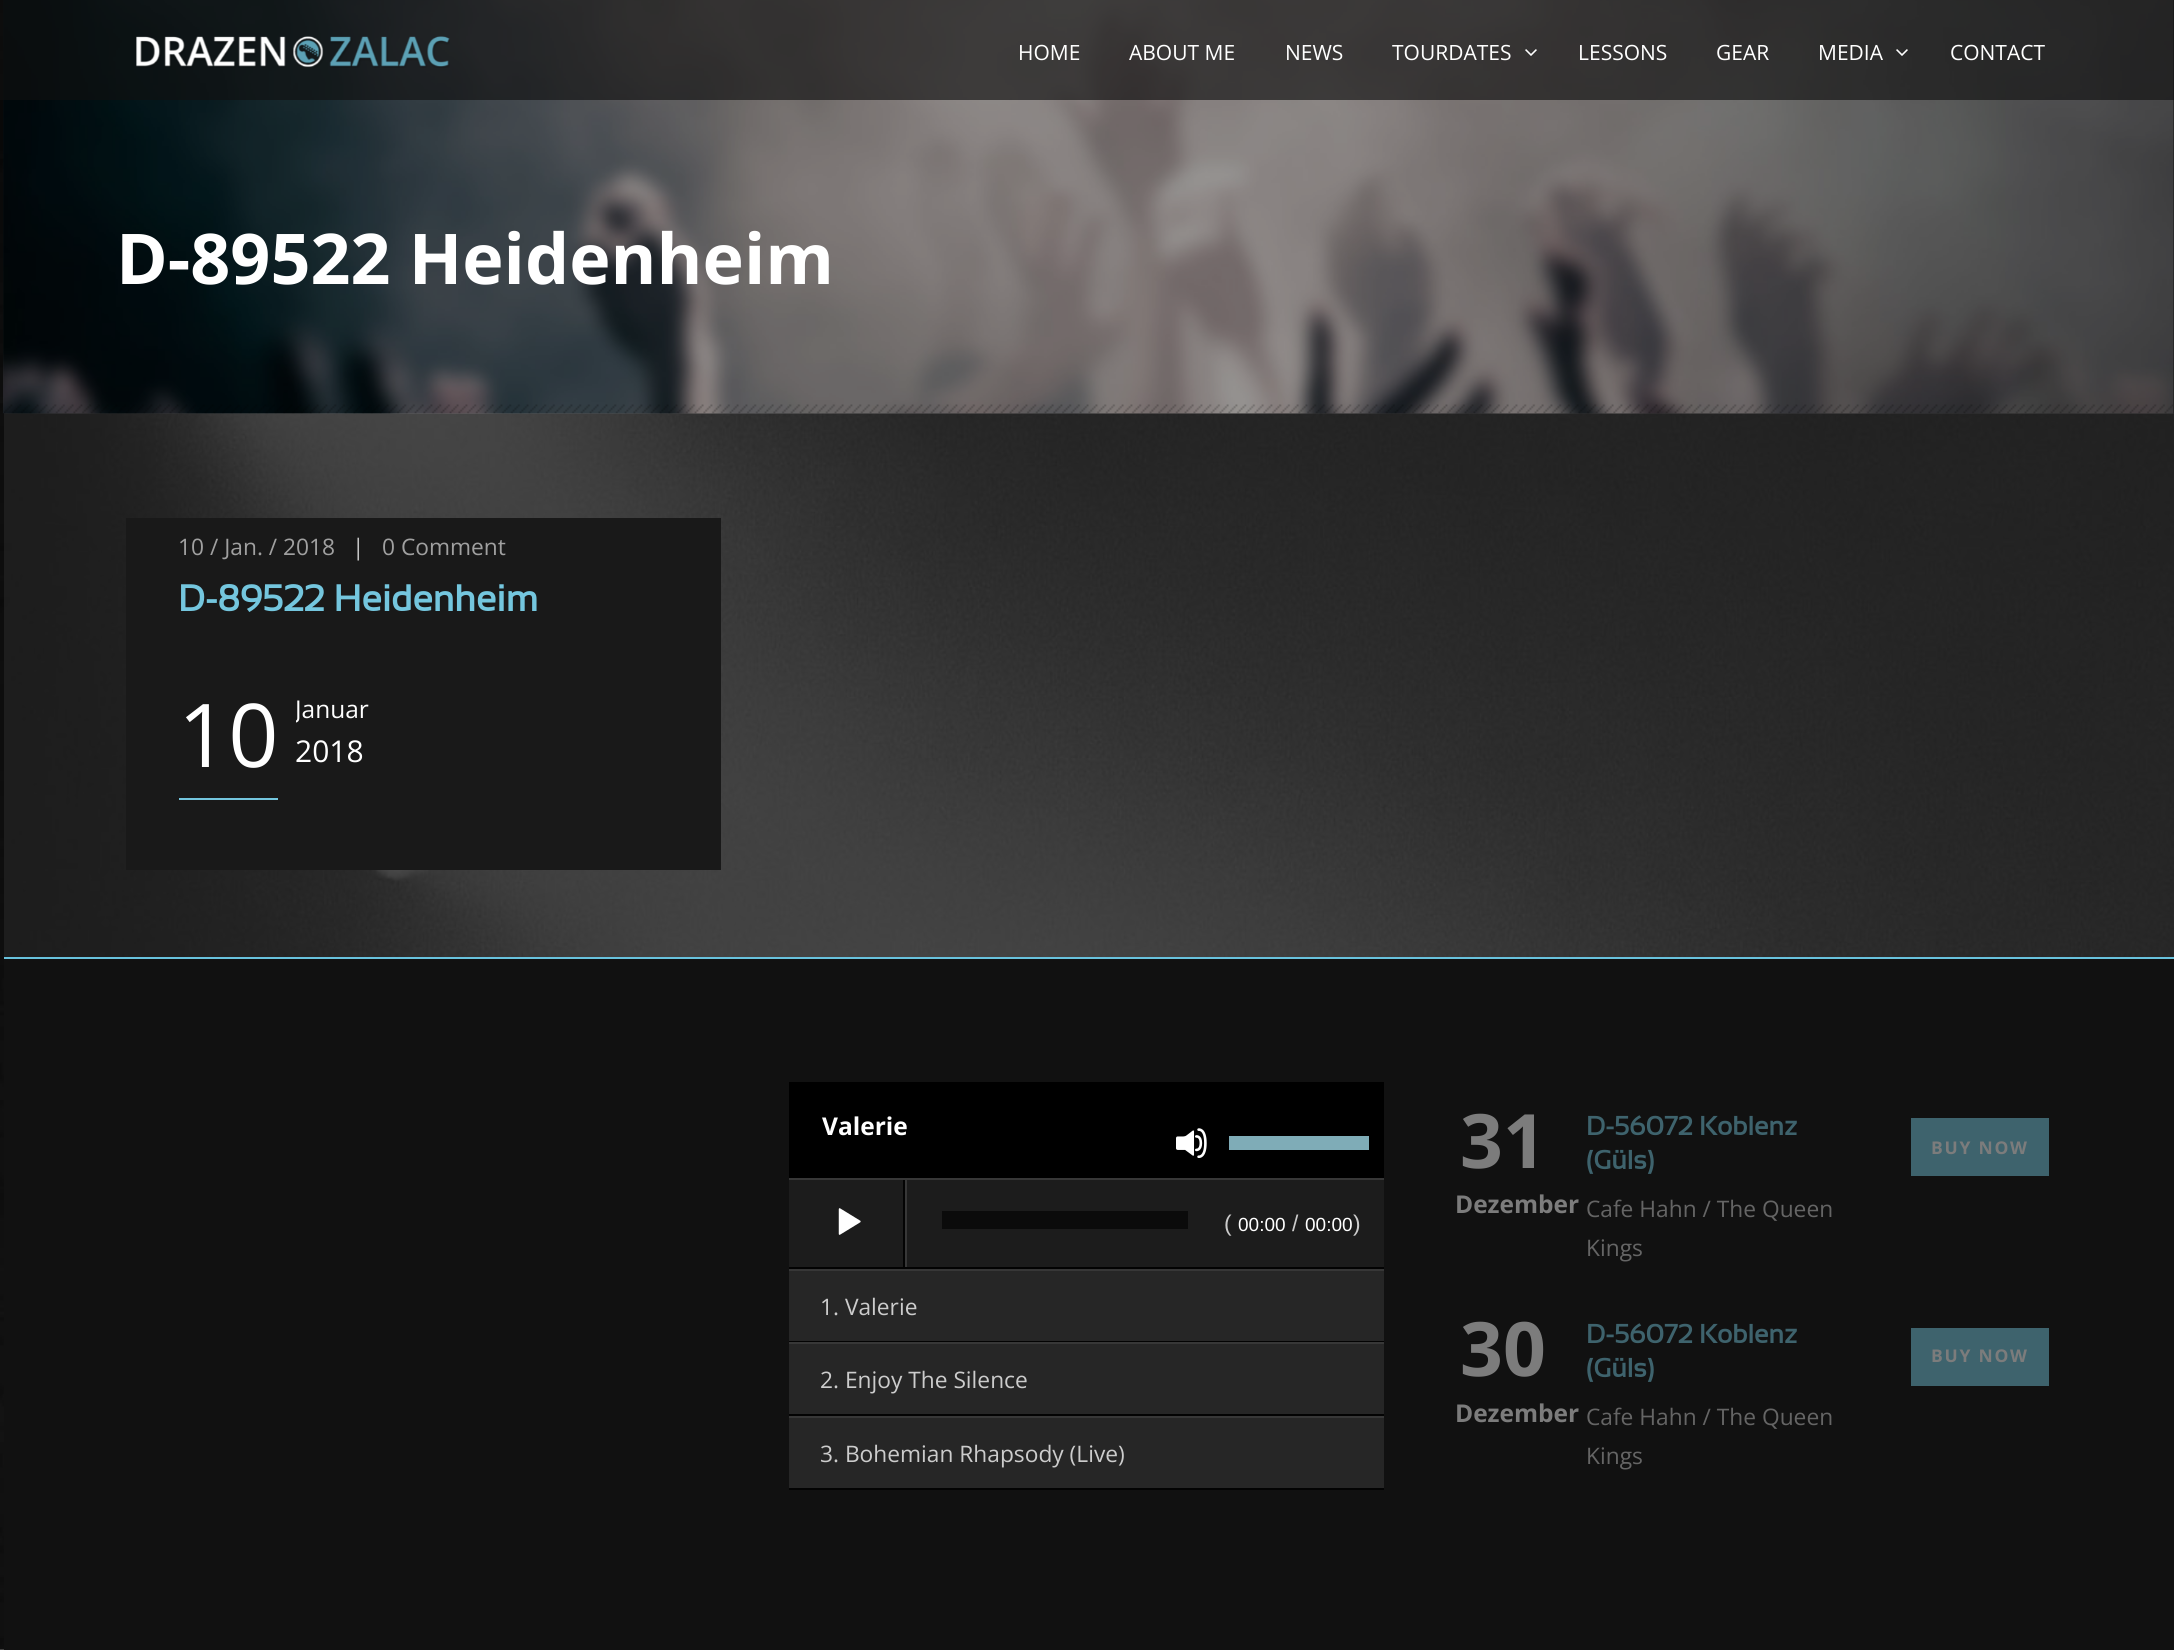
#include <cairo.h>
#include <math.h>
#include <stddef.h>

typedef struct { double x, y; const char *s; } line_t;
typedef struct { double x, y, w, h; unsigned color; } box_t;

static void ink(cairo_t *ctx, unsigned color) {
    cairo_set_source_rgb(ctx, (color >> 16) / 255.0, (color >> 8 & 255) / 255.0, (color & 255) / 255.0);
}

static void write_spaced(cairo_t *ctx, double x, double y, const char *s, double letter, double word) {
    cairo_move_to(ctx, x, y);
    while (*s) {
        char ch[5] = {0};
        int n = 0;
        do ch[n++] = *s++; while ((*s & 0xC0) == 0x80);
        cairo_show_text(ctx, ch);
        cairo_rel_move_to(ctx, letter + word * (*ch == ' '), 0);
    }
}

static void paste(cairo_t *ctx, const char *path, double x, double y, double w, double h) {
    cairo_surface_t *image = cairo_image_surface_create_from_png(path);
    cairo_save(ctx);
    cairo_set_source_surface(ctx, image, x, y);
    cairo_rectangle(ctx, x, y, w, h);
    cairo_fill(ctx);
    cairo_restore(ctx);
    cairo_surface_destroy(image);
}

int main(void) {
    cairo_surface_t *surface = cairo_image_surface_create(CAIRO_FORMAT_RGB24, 2174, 1650);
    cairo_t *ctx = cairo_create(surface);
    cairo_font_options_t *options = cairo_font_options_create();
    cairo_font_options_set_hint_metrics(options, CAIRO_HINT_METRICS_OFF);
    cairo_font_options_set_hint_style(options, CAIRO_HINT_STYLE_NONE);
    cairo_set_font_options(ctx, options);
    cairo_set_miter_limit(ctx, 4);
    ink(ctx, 0xFFFFFF);
    cairo_paint(ctx);
    paste(ctx, "media/1.png", 0, 0, 2174, 1650);
    cairo_set_source_rgba(ctx, 0.129, 0.129, 0.129, 0.8);
    cairo_rectangle(ctx, 4, 0, 2170, 957);
    cairo_fill(ctx);
    paste(ctx, "media/5.png", 3, 0, 2171, 414);
    cairo_set_source_rgba(ctx, 0, 0, 0, 0.4);
    cairo_rectangle(ctx, 4, 0, 2170, 413);
    cairo_fill(ctx);
    cairo_set_source_rgba(ctx, 0.067, 0.067, 0.067, 0.64);
    cairo_rectangle(ctx, 0, 0, 2174, 100);
    cairo_fill(ctx);
    paste(ctx, "media/2.png", 136, 36, 314, 32);
    cairo_select_font_face(ctx, "Open Sans", CAIRO_FONT_SLANT_NORMAL, CAIRO_FONT_WEIGHT_NORMAL);
    cairo_set_font_size(ctx, 21);
    ink(ctx, 0xFFFFFF);
    {
        static const line_t items[] = {
            {1018, 60, "HOME"},
            {1129, 60, "ABOUT ME"},
            {1285, 60, "NEWS"},
            {1392, 60, "TOURDATES"},
        };
        for (size_t i = 0; i < sizeof items / sizeof *items; i++) {
            cairo_move_to(ctx, items[i].x, items[i].y);
            cairo_show_text(ctx, items[i].s);
        }
    }
    paste(ctx, "media/3.png", 1525, 49, 12, 7);
    {
        static const line_t items[] = {
            {1578, 60, "LESSONS"},
            {1716, 60, "GEAR"},
            {1818, 60, "MEDIA"},
        };
        for (size_t i = 0; i < sizeof items / sizeof *items; i++) {
            cairo_move_to(ctx, items[i].x, items[i].y);
            cairo_show_text(ctx, items[i].s);
        }
    }
    paste(ctx, "media/4.png", 1896, 49, 12, 7);
    cairo_move_to(ctx, 1950, 60);
    cairo_show_text(ctx, "CONTACT");
    cairo_select_font_face(ctx, "Open Sans", CAIRO_FONT_SLANT_NORMAL, CAIRO_FONT_WEIGHT_BOLD);
    cairo_set_font_size(ctx, 70);
    cairo_move_to(ctx, 116, 284);
    cairo_show_text(ctx, "D-89522 Heidenheim");
    paste(ctx, "media/6.png", 4, 404, 2169, 10);
    ink(ctx, 0x191919);
    cairo_rectangle(ctx, 126, 518, 595, 352);
    cairo_fill(ctx);
    cairo_select_font_face(ctx, "Open Sans", CAIRO_FONT_SLANT_NORMAL, CAIRO_FONT_WEIGHT_NORMAL);
    cairo_set_font_size(ctx, 22.75);
    ink(ctx, 0xA0A0A0);
    cairo_move_to(ctx, 178, 555);
    cairo_show_text(ctx, "10 / Jan. / 2018");
    ink(ctx, 0xC5C5C5);
    cairo_move_to(ctx, 352, 555);
    cairo_show_text(ctx, "|");
    ink(ctx, 0xA0A0A0);
    cairo_move_to(ctx, 382, 555);
    cairo_show_text(ctx, "0 Comment");
    cairo_select_font_face(ctx, "Sansation", CAIRO_FONT_SLANT_NORMAL, CAIRO_FONT_WEIGHT_BOLD);
    cairo_set_font_size(ctx, 36.75);
    ink(ctx, 0x74C6DE);
    cairo_move_to(ctx, 178, 611);
    cairo_show_text(ctx, "D-89522 Heidenheim");
    cairo_rectangle(ctx, 179, 798, 99, 2);
    cairo_fill(ctx);
    cairo_select_font_face(ctx, "Open Sans", CAIRO_FONT_SLANT_NORMAL, CAIRO_FONT_WEIGHT_NORMAL);
    cairo_set_font_size(ctx, 88);
    ink(ctx, 0xFFFFFF);
    cairo_move_to(ctx, 178, 767);
    cairo_show_text(ctx, "10");
    cairo_save(ctx);
    cairo_rectangle(ctx, 296, 690, 373, 75);
    cairo_clip(ctx);
    cairo_set_font_size(ctx, 24.5);
    cairo_move_to(ctx, 295, 718);
    cairo_show_text(ctx, "Januar");
    cairo_restore(ctx);
    cairo_set_font_size(ctx, 30);
    cairo_move_to(ctx, 295, 762);
    cairo_show_text(ctx, "2018");
    {
        static const box_t items[] = {
            {4, 959, 2170, 691, 0x111111},
            {4, 957, 2170, 2, 0x68C2DD},
            {789, 1082, 595, 96, 0x000000},
        };
        for (size_t i = 0; i < sizeof items / sizeof *items; i++) {
            ink(ctx, items[i].color);
            cairo_rectangle(ctx, items[i].x, items[i].y, items[i].w, items[i].h);
            cairo_fill(ctx);
        }
    }
    cairo_select_font_face(ctx, "Open Sans", CAIRO_FONT_SLANT_NORMAL, CAIRO_FONT_WEIGHT_BOLD);
    cairo_set_font_size(ctx, 24.5);
    ink(ctx, 0xFFFFFF);
    cairo_move_to(ctx, 822, 1135);
    cairo_show_text(ctx, "Valerie");
    {
        static const box_t items[] = {
            {789, 1180, 595, 87, 0x1C1C1C},
            {789, 1178, 595, 2, 0x373737},
            {789, 1267, 595, 2, 0x030303},
        };
        for (size_t i = 0; i < sizeof items / sizeof *items; i++) {
            ink(ctx, items[i].color);
            cairo_rectangle(ctx, items[i].x, items[i].y, items[i].w, items[i].h);
            cairo_fill(ctx);
        }
    }
    paste(ctx, "media/7.png", 1176, 1128, 31, 30);
    ink(ctx, 0x7FACB7);
    cairo_rectangle(ctx, 1229, 1136, 140, 14);
    cairo_fill(ctx);
    ink(ctx, 0x030303);
    cairo_rectangle(ctx, 903, 1180, 2, 87);
    cairo_fill(ctx);
    paste(ctx, "media/8.png", 838, 1208, 23, 27);
    ink(ctx, 0x373737);
    cairo_rectangle(ctx, 905, 1180, 2, 87);
    cairo_fill(ctx);
    ink(ctx, 0x0B0B0B);
    cairo_rectangle(ctx, 942, 1211, 246, 18);
    cairo_fill(ctx);
    cairo_select_font_face(ctx, "Liberation Sans", CAIRO_FONT_SLANT_NORMAL, CAIRO_FONT_WEIGHT_NORMAL);
    cairo_set_font_size(ctx, 22.75);
    ink(ctx, 0xCCCCCC);
    cairo_move_to(ctx, 1224, 1231);
    cairo_show_text(ctx, "(");
    cairo_set_font_size(ctx, 19);
    ink(ctx, 0xFFFFFF);
    cairo_move_to(ctx, 1238, 1231);
    cairo_show_text(ctx, "00:00");
    cairo_set_font_size(ctx, 22.75);
    ink(ctx, 0xCCCCCC);
    cairo_move_to(ctx, 1292, 1231);
    cairo_show_text(ctx, "/");
    cairo_set_font_size(ctx, 19);
    ink(ctx, 0xFFFFFF);
    cairo_move_to(ctx, 1305, 1231);
    cairo_show_text(ctx, "00:00");
    cairo_set_font_size(ctx, 22.75);
    ink(ctx, 0xCCCCCC);
    cairo_move_to(ctx, 1353, 1231);
    cairo_show_text(ctx, ")");
    {
        static const box_t items[] = {
            {789, 1271, 595, 70, 0x262626},
            {789, 1269, 595, 2, 0x373737},
            {789, 1341, 595, 1, 0x030303},
        };
        for (size_t i = 0; i < sizeof items / sizeof *items; i++) {
            ink(ctx, items[i].color);
            cairo_rectangle(ctx, items[i].x, items[i].y, items[i].w, items[i].h);
            cairo_fill(ctx);
        }
    }
    cairo_select_font_face(ctx, "Open Sans", CAIRO_FONT_SLANT_NORMAL, CAIRO_FONT_WEIGHT_NORMAL);
    ink(ctx, 0xCCCCCC);
    cairo_move_to(ctx, 820, 1315);
    cairo_show_text(ctx, "1. Valerie");
    {
        static const box_t items[] = {
            {789, 1344, 595, 70, 0x262626},
            {789, 1342, 595, 2, 0x373737},
            {789, 1414, 595, 2, 0x030303},
        };
        for (size_t i = 0; i < sizeof items / sizeof *items; i++) {
            ink(ctx, items[i].color);
            cairo_rectangle(ctx, items[i].x, items[i].y, items[i].w, items[i].h);
            cairo_fill(ctx);
        }
    }
    ink(ctx, 0xCCCCCC);
    cairo_move_to(ctx, 820, 1388);
    cairo_show_text(ctx, "2. Enjoy The Silence");
    {
        static const box_t items[] = {
            {789, 1418, 595, 70, 0x262626},
            {789, 1416, 595, 2, 0x373737},
            {789, 1488, 595, 2, 0x030303},
        };
        for (size_t i = 0; i < sizeof items / sizeof *items; i++) {
            ink(ctx, items[i].color);
            cairo_rectangle(ctx, items[i].x, items[i].y, items[i].w, items[i].h);
            cairo_fill(ctx);
        }
    }
    ink(ctx, 0xCCCCCC);
    cairo_move_to(ctx, 820, 1462);
    cairo_show_text(ctx, "3. Bohemian Rhapsody (Live)");
    cairo_select_font_face(ctx, "Open Sans", CAIRO_FONT_SLANT_NORMAL, CAIRO_FONT_WEIGHT_BOLD);
    cairo_set_font_size(ctx, 75);
    ink(ctx, 0x7C7C7C);
    cairo_move_to(ctx, 1460, 1168);
    cairo_show_text(ctx, "31");
    cairo_set_font_size(ctx, 24.5);
    cairo_move_to(ctx, 1455, 1213);
    cairo_show_text(ctx, "Dezember");
    cairo_select_font_face(ctx, "Sansation", CAIRO_FONT_SLANT_NORMAL, CAIRO_FONT_WEIGHT_BOLD);
    cairo_set_font_size(ctx, 26.25);
    ink(ctx, 0x3E636D);
    cairo_move_to(ctx, 1586, 1135);
    cairo_show_text(ctx, "D-56072 Koblenz");
    cairo_move_to(ctx, 1586, 1169);
    cairo_show_text(ctx, "(Güls)");
    cairo_select_font_face(ctx, "Open Sans", CAIRO_FONT_SLANT_NORMAL, CAIRO_FONT_WEIGHT_NORMAL);
    cairo_set_font_size(ctx, 22.75);
    ink(ctx, 0x656565);
    cairo_move_to(ctx, 1586, 1217);
    cairo_show_text(ctx, "Cafe Hahn / The Queen");
    cairo_move_to(ctx, 1586, 1256);
    cairo_show_text(ctx, "Kings");
    ink(ctx, 0x3E636D);
    cairo_rectangle(ctx, 1911, 1118, 138, 58);
    cairo_fill(ctx);
    cairo_select_font_face(ctx, "Open Sans", CAIRO_FONT_SLANT_NORMAL, CAIRO_FONT_WEIGHT_BOLD);
    cairo_set_font_size(ctx, 17.5);
    ink(ctx, 0x7C7C7C);
    write_spaced(ctx, 1931, 1154, "BUY NOW", 1.75, 0);
    cairo_set_font_size(ctx, 75);
    cairo_move_to(ctx, 1460, 1376);
    cairo_show_text(ctx, "30");
    cairo_set_font_size(ctx, 24.5);
    cairo_move_to(ctx, 1455, 1422);
    cairo_show_text(ctx, "Dezember");
    cairo_select_font_face(ctx, "Sansation", CAIRO_FONT_SLANT_NORMAL, CAIRO_FONT_WEIGHT_BOLD);
    cairo_set_font_size(ctx, 26.25);
    ink(ctx, 0x3E636D);
    cairo_move_to(ctx, 1586, 1343);
    cairo_show_text(ctx, "D-56072 Koblenz");
    cairo_move_to(ctx, 1586, 1377);
    cairo_show_text(ctx, "(Güls)");
    cairo_select_font_face(ctx, "Open Sans", CAIRO_FONT_SLANT_NORMAL, CAIRO_FONT_WEIGHT_NORMAL);
    cairo_set_font_size(ctx, 22.75);
    ink(ctx, 0x656565);
    cairo_move_to(ctx, 1586, 1425);
    cairo_show_text(ctx, "Cafe Hahn / The Queen");
    cairo_move_to(ctx, 1586, 1464);
    cairo_show_text(ctx, "Kings");
    ink(ctx, 0x3E636D);
    cairo_rectangle(ctx, 1911, 1328, 138, 58);
    cairo_fill(ctx);
    cairo_select_font_face(ctx, "Open Sans", CAIRO_FONT_SLANT_NORMAL, CAIRO_FONT_WEIGHT_BOLD);
    cairo_set_font_size(ctx, 17.5);
    ink(ctx, 0x7C7C7C);
    write_spaced(ctx, 1931, 1362, "BUY NOW", 1.75, 0);
    cairo_surface_write_to_png(surface, "image.png");
    cairo_font_options_destroy(options);
    cairo_destroy(ctx);
    cairo_surface_destroy(surface);
    return 0;
}
